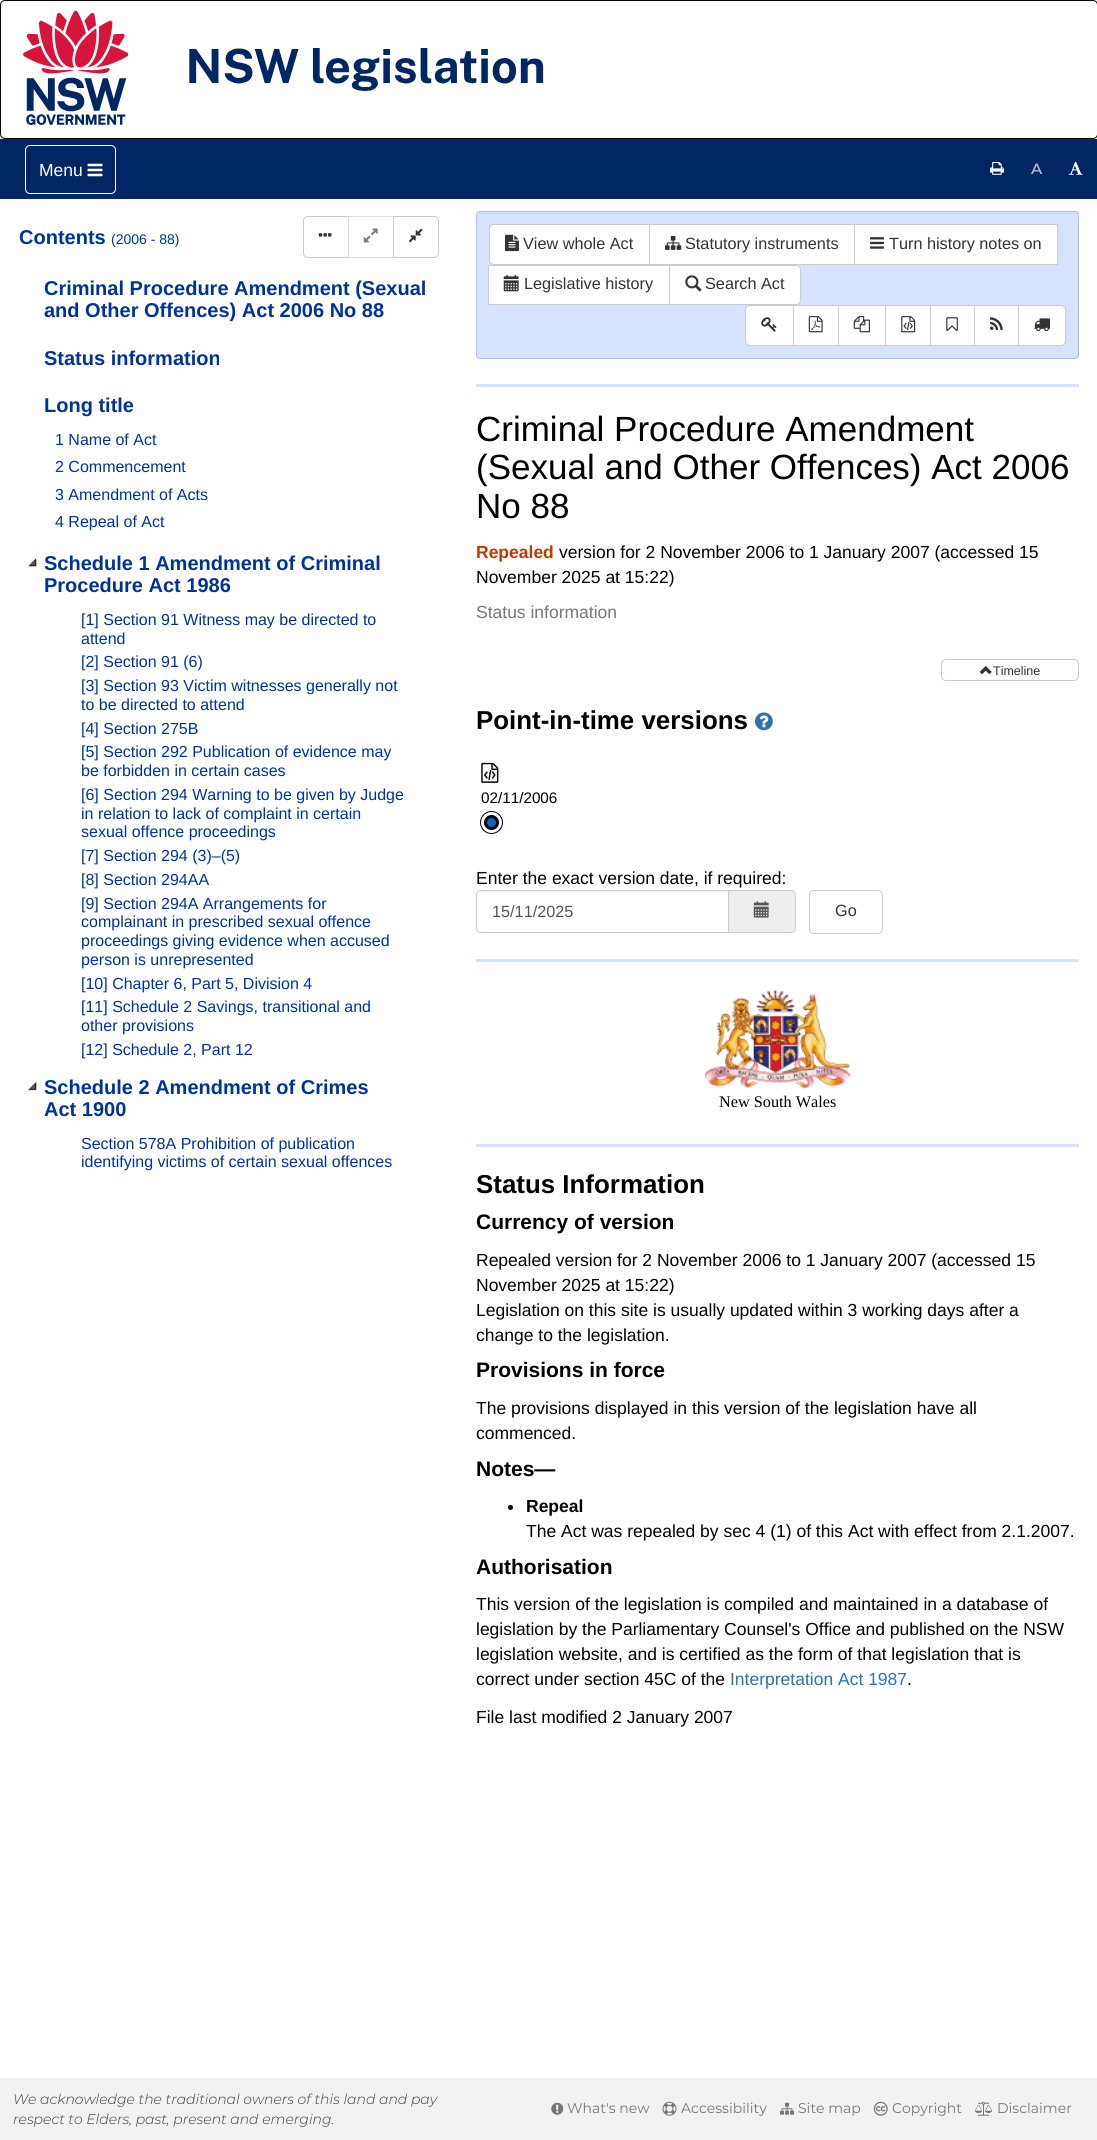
#include <cairo.h>
#include <math.h>
#include <stddef.h>

typedef struct { double x, y; const char *s; } line_t;

static void ink(cairo_t *ctx, unsigned color) {
    cairo_set_source_rgb(ctx, (color >> 16) / 255.0, (color >> 8 & 255) / 255.0, (color & 255) / 255.0);
}

static void write_spaced(cairo_t *ctx, double x, double y, const char *s, double letter, double word) {
    cairo_move_to(ctx, x, y);
    while (*s) {
        char ch[5] = {0};
        int n = 0;
        do ch[n++] = *s++; while ((*s & 0xC0) == 0x80);
        cairo_show_text(ctx, ch);
        cairo_rel_move_to(ctx, letter + word * (*ch == ' '), 0);
    }
}

static void round_path(cairo_t *ctx, double x, double y, double w, double h, double r) {
    cairo_new_sub_path(ctx);
    cairo_arc(ctx, x + w - r, y + h - r, r, 0, M_PI / 2);
    cairo_arc(ctx, x + r, y + h - r, r, M_PI / 2, M_PI);
    cairo_arc(ctx, x + r, y + r, r, M_PI, 1.5 * M_PI);
    cairo_arc(ctx, x + w - r, y + r, r, 1.5 * M_PI, 2 * M_PI);
    cairo_close_path(ctx);
}

static void paste(cairo_t *ctx, const char *path, double x, double y, double w, double h) {
    cairo_surface_t *image = cairo_image_surface_create_from_png(path);
    cairo_save(ctx);
    cairo_set_source_surface(ctx, image, x, y);
    cairo_rectangle(ctx, x, y, w, h);
    cairo_fill(ctx);
    cairo_restore(ctx);
    cairo_surface_destroy(image);
}

int main(void) {
    cairo_surface_t *surface = cairo_image_surface_create(CAIRO_FORMAT_RGB24, 1097, 2140);
    cairo_t *ctx = cairo_create(surface);
    cairo_font_options_t *options = cairo_font_options_create();
    cairo_font_options_set_hint_metrics(options, CAIRO_HINT_METRICS_OFF);
    cairo_font_options_set_hint_style(options, CAIRO_HINT_STYLE_NONE);
    cairo_set_font_options(ctx, options);
    cairo_set_miter_limit(ctx, 4);
    ink(ctx, 0xFFFFFF);
    cairo_paint(ctx);
    round_path(ctx, 0.5, 0.5, 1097, 138, 4.5);
    ink(ctx, 0x080808);
    cairo_set_line_width(ctx, 1);
    cairo_stroke(ctx);
    paste(ctx, "media/1.png", 23, 10, 521, 115);
    ink(ctx, 0x002664);
    cairo_rectangle(ctx, 0, 139, 1097, 60);
    cairo_fill(ctx);
    round_path(ctx, 25.5, 145.5, 90, 48, 4.5);
    ink(ctx, 0xFFFFFF);
    cairo_stroke(ctx);
    cairo_select_font_face(ctx, "Liberation Sans", CAIRO_FONT_SLANT_NORMAL, CAIRO_FONT_WEIGHT_NORMAL);
    cairo_set_font_size(ctx, 17.5);
    cairo_move_to(ctx, 39, 176);
    cairo_show_text(ctx, "Menu");
    paste(ctx, "media/2.png", 87, 163, 16, 14);
    paste(ctx, "media/3.png", 990, 161, 14, 14);
    cairo_select_font_face(ctx, "Montserrat SemiBold", CAIRO_FONT_SLANT_NORMAL, CAIRO_FONT_WEIGHT_NORMAL);
    cairo_set_font_size(ctx, 15);
    ink(ctx, 0xA6B3C9);
    write_spaced(ctx, 1031, 174, "A", 1, 0);
    paste(ctx, "media/4.png", 1068, 161, 15, 14);
    cairo_select_font_face(ctx, "Liberation Sans", CAIRO_FONT_SLANT_NORMAL, CAIRO_FONT_WEIGHT_BOLD);
    cairo_set_font_size(ctx, 20);
    ink(ctx, 0x003399);
    cairo_move_to(ctx, 19, 244);
    cairo_show_text(ctx, "Contents");
    cairo_select_font_face(ctx, "Liberation Sans", CAIRO_FONT_SLANT_NORMAL, CAIRO_FONT_WEIGHT_NORMAL);
    cairo_set_font_size(ctx, 14);
    cairo_move_to(ctx, 111, 244);
    cairo_show_text(ctx, "(2006 - 88)");
    cairo_new_path(ctx);
    cairo_move_to(ctx, 308, 216.5);
    cairo_line_to(ctx, 348.5, 216.5);
    cairo_line_to(ctx, 348.5, 257.5);
    cairo_line_to(ctx, 308, 257.5);
    cairo_curve_to(ctx, 305.5, 257.5, 303.5, 255.5, 303.5, 253);
    cairo_line_to(ctx, 303.5, 221);
    cairo_curve_to(ctx, 303.5, 218.5, 305.5, 216.5, 308, 216.5);
    cairo_close_path(ctx);
    ink(ctx, 0xCCCCCC);
    cairo_stroke(ctx);
    paste(ctx, "media/5.png", 318, 233, 14, 4);
    cairo_set_source_rgba(ctx, 1, 1, 1, 0.65);
    cairo_rectangle(ctx, 348, 216, 1, 42);
    cairo_fill(ctx);
    cairo_rectangle(ctx, 348.5, 216.5, 45, 41);
    cairo_set_source_rgba(ctx, 0.8, 0.8, 0.8, 0.65);
    cairo_stroke(ctx);
    paste(ctx, "media/6.png", 363, 228, 15, 15);
    ink(ctx, 0xFFFFFF);
    cairo_new_path(ctx);
    cairo_move_to(ctx, 393.5, 216.5);
    cairo_line_to(ctx, 434, 216.5);
    cairo_curve_to(ctx, 436.5, 216.5, 438.5, 218.5, 438.5, 221);
    cairo_line_to(ctx, 438.5, 253);
    cairo_curve_to(ctx, 438.5, 255.5, 436.5, 257.5, 434, 257.5);
    cairo_line_to(ctx, 393.5, 257.5);
    cairo_close_path(ctx);
    cairo_fill_preserve(ctx);
    ink(ctx, 0xCCCCCC);
    cairo_stroke(ctx);
    paste(ctx, "media/7.png", 408, 228, 15, 15);
    cairo_select_font_face(ctx, "Liberation Sans", CAIRO_FONT_SLANT_NORMAL, CAIRO_FONT_WEIGHT_BOLD);
    cairo_set_font_size(ctx, 20);
    ink(ctx, 0x003399);
    {
        static const line_t items[] = {
            {44, 295, "Criminal Procedure Amendment (Sexual"},
            {44, 317, "and Other Offences) Act 2006 No 88"},
            {44, 365, "Status information"},
            {44, 412, "Long title"},
        };
        for (size_t i = 0; i < sizeof items / sizeof *items; i++) {
            cairo_move_to(ctx, items[i].x, items[i].y);
            cairo_show_text(ctx, items[i].s);
        }
    }
    cairo_select_font_face(ctx, "Liberation Sans", CAIRO_FONT_SLANT_NORMAL, CAIRO_FONT_WEIGHT_NORMAL);
    cairo_set_font_size(ctx, 16);
    {
        static const line_t items[] = {
            {55, 445, "1 Name of Act"},
            {55, 472, "2 Commencement"},
            {55, 500, "3 Amendment of Acts"},
            {55, 527, "4 Repeal of Act"},
        };
        for (size_t i = 0; i < sizeof items / sizeof *items; i++) {
            cairo_move_to(ctx, items[i].x, items[i].y);
            cairo_show_text(ctx, items[i].s);
        }
    }
    paste(ctx, "media/8.png", 28, 558, 9, 9);
    cairo_select_font_face(ctx, "Liberation Sans", CAIRO_FONT_SLANT_NORMAL, CAIRO_FONT_WEIGHT_BOLD);
    cairo_set_font_size(ctx, 20);
    cairo_move_to(ctx, 44, 570);
    cairo_show_text(ctx, "Schedule 1 Amendment of Criminal");
    cairo_move_to(ctx, 44, 592);
    cairo_show_text(ctx, "Procedure Act 1986");
    cairo_select_font_face(ctx, "Liberation Sans", CAIRO_FONT_SLANT_NORMAL, CAIRO_FONT_WEIGHT_NORMAL);
    cairo_set_font_size(ctx, 16);
    {
        static const line_t items[] = {
            {81, 625, "[1] Section 91 Witness may be directed to"},
            {81, 644, "attend"},
            {81, 667, "[2] Section 91 (6)"},
            {81, 691, "[3] Section 93 Victim witnesses generally not"},
            {81, 710, "to be directed to attend"},
            {81, 734, "[4] Section 275B"},
            {81, 757, "[5] Section 292 Publication of evidence may"},
            {81, 776, "be forbidden in certain cases"},
            {81, 800, "[6] Section 294 Warning to be given by Judge"},
            {81, 819, "in relation to lack of complaint in certain"},
            {81, 837, "sexual offence proceedings"},
            {81, 861, "[7] Section 294 (3)–(5)"},
            {81, 885, "[8] Section 294AA"},
            {81, 909, "[9] Section 294A Arrangements for"},
            {81, 927, "complainant in prescribed sexual offence"},
            {81, 946, "proceedings giving evidence when accused"},
            {81, 965, "person is unrepresented"},
            {81, 989, "[10] Chapter 6, Part 5, Division 4"},
            {81, 1012, "[11] Schedule 2 Savings, transitional and"},
            {81, 1031, "other provisions"},
            {81, 1055, "[12] Schedule 2, Part 12"},
        };
        for (size_t i = 0; i < sizeof items / sizeof *items; i++) {
            cairo_move_to(ctx, items[i].x, items[i].y);
            cairo_show_text(ctx, items[i].s);
        }
    }
    paste(ctx, "media/9.png", 28, 1082, 9, 9);
    cairo_select_font_face(ctx, "Liberation Sans", CAIRO_FONT_SLANT_NORMAL, CAIRO_FONT_WEIGHT_BOLD);
    cairo_set_font_size(ctx, 20);
    cairo_move_to(ctx, 44, 1094);
    cairo_show_text(ctx, "Schedule 2 Amendment of Crimes");
    cairo_move_to(ctx, 44, 1116);
    cairo_show_text(ctx, "Act 1900");
    cairo_select_font_face(ctx, "Liberation Sans", CAIRO_FONT_SLANT_NORMAL, CAIRO_FONT_WEIGHT_NORMAL);
    cairo_set_font_size(ctx, 16);
    cairo_move_to(ctx, 81, 1149);
    cairo_show_text(ctx, "Section 578A Prohibition of publication");
    cairo_move_to(ctx, 81, 1167);
    cairo_show_text(ctx, "identifying victims of certain sexual offences");
    ink(ctx, 0xD7E2FC);
    round_path(ctx, 476, 211, 603, 148, 4);
    cairo_fill(ctx);
    ink(ctx, 0xCCD7EF);
    cairo_new_path(ctx);
    cairo_move_to(ctx, 480, 214);
    cairo_line_to(ctx, 1075, 214);
    cairo_curve_to(ctx, 1076, 214, 1078, 215, 1078, 216);
    cairo_curve_to(ctx, 1078, 214, 1077, 213, 1076, 213);
    cairo_line_to(ctx, 480, 213);
    cairo_curve_to(ctx, 479, 213, 478, 214, 478, 216);
    cairo_curve_to(ctx, 478, 215, 479, 214, 480, 214);
    cairo_close_path(ctx);
    cairo_fill(ctx);
    round_path(ctx, 476.5, 211.5, 602, 147, 3.5);
    ink(ctx, 0xAEBFE9);
    cairo_stroke(ctx);
    ink(ctx, 0xFFFFFF);
    cairo_new_path(ctx);
    cairo_move_to(ctx, 494, 224.5);
    cairo_line_to(ctx, 649.5, 224.5);
    cairo_line_to(ctx, 649.5, 264.5);
    cairo_line_to(ctx, 494, 264.5);
    cairo_curve_to(ctx, 491.5, 264.5, 489.5, 262.5, 489.5, 260);
    cairo_line_to(ctx, 489.5, 229);
    cairo_curve_to(ctx, 489.5, 226.5, 491.5, 224.5, 494, 224.5);
    cairo_close_path(ctx);
    cairo_fill_preserve(ctx);
    ink(ctx, 0xCCCCCC);
    cairo_stroke(ctx);
    paste(ctx, "media/10.png", 505, 234, 14, 18);
    cairo_set_font_size(ctx, 16.25);
    ink(ctx, 0x333333);
    cairo_move_to(ctx, 523, 249);
    cairo_show_text(ctx, "View whole Act");
    ink(ctx, 0xFFFFFF);
    cairo_rectangle(ctx, 649.5, 224.5, 205, 40);
    cairo_fill_preserve(ctx);
    ink(ctx, 0xCCCCCC);
    cairo_stroke(ctx);
    paste(ctx, "media/11.png", 665, 236, 17, 14);
    ink(ctx, 0x333333);
    cairo_move_to(ctx, 685, 249);
    cairo_show_text(ctx, "Statutory instruments");
    ink(ctx, 0xFFFFFF);
    cairo_rectangle(ctx, 854.5, 224.5, 203, 40);
    cairo_fill_preserve(ctx);
    ink(ctx, 0xCCCCCC);
    cairo_stroke(ctx);
    paste(ctx, "media/12.png", 870, 237, 14, 12);
    ink(ctx, 0x333333);
    cairo_move_to(ctx, 889, 249);
    cairo_show_text(ctx, "Turn history notes on");
    ink(ctx, 0xFFFFFF);
    cairo_rectangle(ctx, 488.5, 265.5, 181, 39);
    cairo_fill_preserve(ctx);
    ink(ctx, 0xCCCCCC);
    cairo_stroke(ctx);
    paste(ctx, "media/13.png", 503, 275, 16, 17);
    ink(ctx, 0x333333);
    cairo_move_to(ctx, 524, 289);
    cairo_show_text(ctx, "Legislative history");
    ink(ctx, 0xFFFFFF);
    cairo_new_path(ctx);
    cairo_move_to(ctx, 669.5, 265.5);
    cairo_line_to(ctx, 796, 265.5);
    cairo_curve_to(ctx, 798.5, 265.5, 800.5, 267.5, 800.5, 270);
    cairo_line_to(ctx, 800.5, 300);
    cairo_curve_to(ctx, 800.5, 302.5, 798.5, 304.5, 796, 304.5);
    cairo_line_to(ctx, 669.5, 304.5);
    cairo_close_path(ctx);
    cairo_fill_preserve(ctx);
    ink(ctx, 0xCCCCCC);
    cairo_stroke(ctx);
    paste(ctx, "media/14.png", 685, 275, 17, 17);
    ink(ctx, 0x333333);
    cairo_move_to(ctx, 705, 289);
    cairo_show_text(ctx, "Search Act");
    ink(ctx, 0xFFFFFF);
    cairo_new_path(ctx);
    cairo_move_to(ctx, 750, 305.5);
    cairo_line_to(ctx, 793.5, 305.5);
    cairo_line_to(ctx, 793.5, 345.5);
    cairo_line_to(ctx, 750, 345.5);
    cairo_curve_to(ctx, 747.5, 345.5, 745.5, 343.5, 745.5, 341);
    cairo_line_to(ctx, 745.5, 310);
    cairo_curve_to(ctx, 745.5, 307.5, 747.5, 305.5, 750, 305.5);
    cairo_close_path(ctx);
    cairo_fill_preserve(ctx);
    ink(ctx, 0xCCCCCC);
    cairo_stroke(ctx);
    paste(ctx, "media/15.png", 761, 317, 16, 15);
    ink(ctx, 0xFFFFFF);
    cairo_rectangle(ctx, 793.5, 305.5, 45, 40);
    cairo_fill_preserve(ctx);
    ink(ctx, 0xCCCCCC);
    cairo_stroke(ctx);
    paste(ctx, "media/16.png", 808, 316, 15, 17);
    ink(ctx, 0xFFFFFF);
    cairo_rectangle(ctx, 838.5, 305.5, 47, 40);
    cairo_fill_preserve(ctx);
    ink(ctx, 0xCCCCCC);
    cairo_stroke(ctx);
    paste(ctx, "media/17.png", 853, 316, 17, 17);
    ink(ctx, 0xFFFFFF);
    cairo_rectangle(ctx, 885.5, 305.5, 45, 40);
    cairo_fill_preserve(ctx);
    ink(ctx, 0xCCCCCC);
    cairo_stroke(ctx);
    paste(ctx, "media/18.png", 901, 316, 15, 17);
    ink(ctx, 0xFFFFFF);
    cairo_rectangle(ctx, 930.5, 305.5, 44, 40);
    cairo_fill_preserve(ctx);
    ink(ctx, 0xCCCCCC);
    cairo_stroke(ctx);
    paste(ctx, "media/19.png", 946, 317, 12, 14);
    ink(ctx, 0xFFFFFF);
    cairo_rectangle(ctx, 974.5, 305.5, 44, 40);
    cairo_fill_preserve(ctx);
    ink(ctx, 0xCCCCCC);
    cairo_stroke(ctx);
    paste(ctx, "media/20.png", 990, 317, 13, 13);
    ink(ctx, 0xFFFFFF);
    cairo_new_path(ctx);
    cairo_move_to(ctx, 1018.5, 305.5);
    cairo_line_to(ctx, 1061, 305.5);
    cairo_curve_to(ctx, 1063.5, 305.5, 1065.5, 307.5, 1065.5, 310);
    cairo_line_to(ctx, 1065.5, 341);
    cairo_curve_to(ctx, 1065.5, 343.5, 1063.5, 345.5, 1061, 345.5);
    cairo_line_to(ctx, 1018.5, 345.5);
    cairo_close_path(ctx);
    cairo_fill_preserve(ctx);
    ink(ctx, 0xCCCCCC);
    cairo_stroke(ctx);
    paste(ctx, "media/21.png", 1034, 318, 16, 14);
    ink(ctx, 0xD7E2FC);
    cairo_rectangle(ctx, 476, 384, 603, 3);
    cairo_fill(ctx);
    cairo_set_font_size(ctx, 35);
    ink(ctx, 0x000000);
    {
        static const line_t items[] = {
            {476, 441, "Criminal Procedure Amendment"},
            {476, 479, "(Sexual and Other Offences) Act 2006"},
            {476, 518, "No 88"},
        };
        for (size_t i = 0; i < sizeof items / sizeof *items; i++) {
            cairo_move_to(ctx, items[i].x, items[i].y);
            cairo_show_text(ctx, items[i].s);
        }
    }
    cairo_select_font_face(ctx, "Liberation Sans", CAIRO_FONT_SLANT_NORMAL, CAIRO_FONT_WEIGHT_BOLD);
    cairo_set_font_size(ctx, 17.5);
    ink(ctx, 0xC03A00);
    cairo_move_to(ctx, 476, 558);
    cairo_show_text(ctx, "Repealed");
    cairo_select_font_face(ctx, "Liberation Sans", CAIRO_FONT_SLANT_NORMAL, CAIRO_FONT_WEIGHT_NORMAL);
    ink(ctx, 0x000000);
    cairo_move_to(ctx, 559, 558);
    cairo_show_text(ctx, "version for 2 November 2006 to 1 January 2007 (accessed 15");
    cairo_move_to(ctx, 476, 583);
    cairo_show_text(ctx, "November 2025 at 15:22)");
    ink(ctx, 0x777777);
    cairo_move_to(ctx, 476, 618);
    cairo_show_text(ctx, "Status information");
    round_path(ctx, 941.5, 659.5, 137, 21, 4.5);
    ink(ctx, 0xCCCCCC);
    cairo_stroke(ctx);
    paste(ctx, "media/22.png", 979, 666, 13, 9);
    cairo_set_font_size(ctx, 12.5);
    ink(ctx, 0x333333);
    cairo_move_to(ctx, 993, 675);
    cairo_show_text(ctx, "Timeline");
    cairo_select_font_face(ctx, "Liberation Sans", CAIRO_FONT_SLANT_NORMAL, CAIRO_FONT_WEIGHT_BOLD);
    cairo_set_font_size(ctx, 25.9);
    ink(ctx, 0x000000);
    cairo_move_to(ctx, 476, 729);
    cairo_show_text(ctx, "Point-in-time versions");
    paste(ctx, "media/23.png", 755, 712, 18, 19);
    paste(ctx, "media/24.png", 481, 762, 18, 21);
    cairo_select_font_face(ctx, "Liberation Sans", CAIRO_FONT_SLANT_NORMAL, CAIRO_FONT_WEIGHT_NORMAL);
    cairo_set_font_size(ctx, 15.25);
    cairo_move_to(ctx, 481, 803);
    cairo_show_text(ctx, "02/11/2006");
    cairo_new_path(ctx);
    cairo_arc(ctx, 491.5, 822.5, 11, 0, 2 * M_PI);
    cairo_stroke(ctx);
    ink(ctx, 0x0066CC);
    cairo_arc(ctx, 491.5, 822.5, 6, 0, 2 * M_PI);
    cairo_fill_preserve(ctx);
    ink(ctx, 0x000000);
    cairo_set_line_width(ctx, 3);
    cairo_stroke(ctx);
    cairo_set_font_size(ctx, 17.5);
    cairo_move_to(ctx, 476, 884);
    cairo_show_text(ctx, "Enter the exact version date, if required:");
    ink(ctx, 0xEEEEEE);
    cairo_new_path(ctx);
    cairo_move_to(ctx, 728.5, 890.5);
    cairo_line_to(ctx, 791, 890.5);
    cairo_curve_to(ctx, 793.5, 890.5, 795.5, 892.5, 795.5, 895);
    cairo_line_to(ctx, 795.5, 928);
    cairo_curve_to(ctx, 795.5, 930.5, 793.5, 932.5, 791, 932.5);
    cairo_line_to(ctx, 728.5, 932.5);
    cairo_close_path(ctx);
    cairo_fill_preserve(ctx);
    ink(ctx, 0xCCCCCC);
    cairo_set_line_width(ctx, 1);
    cairo_stroke(ctx);
    ink(ctx, 0xFFFFFF);
    cairo_new_path(ctx);
    cairo_move_to(ctx, 481, 890);
    cairo_line_to(ctx, 729, 890);
    cairo_line_to(ctx, 729, 933);
    cairo_line_to(ctx, 481, 933);
    cairo_curve_to(ctx, 478, 933, 476, 931, 476, 928);
    cairo_line_to(ctx, 476, 895);
    cairo_curve_to(ctx, 476, 892, 478, 890, 481, 890);
    cairo_close_path(ctx);
    cairo_fill(ctx);
    ink(ctx, 0xECECEC);
    cairo_new_path(ctx);
    cairo_move_to(ctx, 481, 892);
    cairo_line_to(ctx, 728, 892);
    cairo_line_to(ctx, 728, 891);
    cairo_line_to(ctx, 482, 891);
    cairo_curve_to(ctx, 480, 891, 478, 893, 478, 895);
    cairo_line_to(ctx, 478, 896);
    cairo_curve_to(ctx, 478, 894, 479, 892, 481, 892);
    cairo_close_path(ctx);
    cairo_fill(ctx);
    cairo_new_path(ctx);
    cairo_move_to(ctx, 481, 890.5);
    cairo_line_to(ctx, 728.5, 890.5);
    cairo_line_to(ctx, 728.5, 932.5);
    cairo_line_to(ctx, 481, 932.5);
    cairo_curve_to(ctx, 478.5, 932.5, 476.5, 930.5, 476.5, 928);
    cairo_line_to(ctx, 476.5, 895);
    cairo_curve_to(ctx, 476.5, 892.5, 478.5, 890.5, 481, 890.5);
    cairo_close_path(ctx);
    ink(ctx, 0xCCCCCC);
    cairo_stroke(ctx);
    cairo_set_font_size(ctx, 16.25);
    ink(ctx, 0x555555);
    cairo_move_to(ctx, 492, 917);
    cairo_show_text(ctx, "15/11/2025");
    paste(ctx, "media/25.png", 753, 901, 16, 17);
    round_path(ctx, 809.5, 890.5, 73, 43, 4.5);
    ink(ctx, 0xCCCCCC);
    cairo_stroke(ctx);
    ink(ctx, 0x333333);
    cairo_move_to(ctx, 835, 916);
    cairo_show_text(ctx, "Go");
    ink(ctx, 0xD7E2FC);
    cairo_rectangle(ctx, 476, 959, 603, 3);
    cairo_fill(ctx);
    paste(ctx, "media/26.png", 704, 989, 147, 100);
    cairo_select_font_face(ctx, "Liberation Serif", CAIRO_FONT_SLANT_NORMAL, CAIRO_FONT_WEIGHT_NORMAL);
    ink(ctx, 0x000000);
    cairo_move_to(ctx, 719, 1107);
    cairo_show_text(ctx, "New South Wales");
    ink(ctx, 0xD7E2FC);
    cairo_rectangle(ctx, 476, 1144, 603, 3);
    cairo_fill(ctx);
    cairo_select_font_face(ctx, "Liberation Sans", CAIRO_FONT_SLANT_NORMAL, CAIRO_FONT_WEIGHT_BOLD);
    cairo_set_font_size(ctx, 25.9);
    ink(ctx, 0x000000);
    cairo_move_to(ctx, 476, 1193);
    cairo_show_text(ctx, "Status Information");
    cairo_set_font_size(ctx, 21);
    cairo_move_to(ctx, 476, 1229);
    cairo_show_text(ctx, "Currency of version");
    cairo_select_font_face(ctx, "Liberation Sans", CAIRO_FONT_SLANT_NORMAL, CAIRO_FONT_WEIGHT_NORMAL);
    cairo_set_font_size(ctx, 17.5);
    {
        static const line_t items[] = {
            {476, 1266, "Repealed version for 2 November 2006 to 1 January 2007 (accessed 15"},
            {476, 1291, "November 2025 at 15:22)"},
            {476, 1316, "Legislation on this site is usually updated within 3 working days after a"},
            {476, 1341, "change to the legislation."},
        };
        for (size_t i = 0; i < sizeof items / sizeof *items; i++) {
            cairo_move_to(ctx, items[i].x, items[i].y);
            cairo_show_text(ctx, items[i].s);
        }
    }
    cairo_select_font_face(ctx, "Liberation Sans", CAIRO_FONT_SLANT_NORMAL, CAIRO_FONT_WEIGHT_BOLD);
    cairo_set_font_size(ctx, 21);
    cairo_move_to(ctx, 476, 1377);
    cairo_show_text(ctx, "Provisions in force");
    cairo_select_font_face(ctx, "Liberation Sans", CAIRO_FONT_SLANT_NORMAL, CAIRO_FONT_WEIGHT_NORMAL);
    cairo_set_font_size(ctx, 17.5);
    cairo_move_to(ctx, 476, 1414);
    cairo_show_text(ctx, "The provisions displayed in this version of the legislation have all");
    cairo_move_to(ctx, 476, 1439);
    cairo_show_text(ctx, "commenced.");
    cairo_select_font_face(ctx, "Liberation Sans", CAIRO_FONT_SLANT_NORMAL, CAIRO_FONT_WEIGHT_BOLD);
    cairo_set_font_size(ctx, 21);
    cairo_move_to(ctx, 476, 1476);
    cairo_show_text(ctx, "Notes—");
    cairo_new_path(ctx);
    cairo_arc(ctx, 510.5, 1507.5, 2.5, 0, 2 * M_PI);
    cairo_fill(ctx);
    cairo_set_font_size(ctx, 17.5);
    cairo_move_to(ctx, 526, 1512);
    cairo_show_text(ctx, "Repeal");
    cairo_select_font_face(ctx, "Liberation Sans", CAIRO_FONT_SLANT_NORMAL, CAIRO_FONT_WEIGHT_NORMAL);
    cairo_move_to(ctx, 526, 1537);
    cairo_show_text(ctx, "The Act was repealed by sec 4 (1) of this Act with effect from 2.1.2007.");
    cairo_select_font_face(ctx, "Liberation Sans", CAIRO_FONT_SLANT_NORMAL, CAIRO_FONT_WEIGHT_BOLD);
    cairo_set_font_size(ctx, 21);
    cairo_move_to(ctx, 476, 1574);
    cairo_show_text(ctx, "Authorisation");
    cairo_select_font_face(ctx, "Liberation Sans", CAIRO_FONT_SLANT_NORMAL, CAIRO_FONT_WEIGHT_NORMAL);
    cairo_set_font_size(ctx, 17.5);
    {
        static const line_t items[] = {
            {476, 1610, "This version of the legislation is compiled and maintained in a database of"},
            {476, 1635, "legislation by the Parliamentary Counsel's Office and published on the NSW"},
            {476, 1660, "legislation website, and is certified as the form of that legislation that is"},
            {476, 1685, "correct under section 45C of the"},
        };
        for (size_t i = 0; i < sizeof items / sizeof *items; i++) {
            cairo_move_to(ctx, items[i].x, items[i].y);
            cairo_show_text(ctx, items[i].s);
        }
    }
    ink(ctx, 0x3170AB);
    cairo_move_to(ctx, 730, 1685);
    cairo_show_text(ctx, "Interpretation Act 1987");
    ink(ctx, 0x000000);
    cairo_move_to(ctx, 907, 1685);
    cairo_show_text(ctx, ".");
    cairo_move_to(ctx, 476, 1723);
    cairo_show_text(ctx, "File last modified 2 January 2007");
    ink(ctx, 0xF2F2F2);
    cairo_rectangle(ctx, 0, 2078, 1097, 62);
    cairo_fill(ctx);
    cairo_select_font_face(ctx, "Montserrat Light", CAIRO_FONT_SLANT_ITALIC, CAIRO_FONT_WEIGHT_NORMAL);
    cairo_set_font_size(ctx, 14);
    ink(ctx, 0x3D3D3D);
    cairo_move_to(ctx, 13, 2104);
    cairo_show_text(ctx, "We acknowledge the traditional owners of this land and pay");
    cairo_move_to(ctx, 13, 2124);
    cairo_show_text(ctx, "respect to Elders, past, present and emerging.");
    paste(ctx, "media/27.png", 551, 2102, 13, 13);
    cairo_select_font_face(ctx, "Montserrat", CAIRO_FONT_SLANT_NORMAL, CAIRO_FONT_WEIGHT_NORMAL);
    ink(ctx, 0x777777);
    cairo_move_to(ctx, 567, 2113);
    cairo_show_text(ctx, "What's new");
    paste(ctx, "media/28.png", 662, 2101, 15, 15);
    cairo_move_to(ctx, 681, 2113);
    cairo_show_text(ctx, "Accessibility");
    paste(ctx, "media/29.png", 780, 2102, 14, 13);
    cairo_move_to(ctx, 798, 2113);
    cairo_show_text(ctx, "Site map");
    paste(ctx, "media/30.png", 873, 2101, 15, 15);
    cairo_move_to(ctx, 892, 2113);
    cairo_show_text(ctx, "Copyright");
    paste(ctx, "media/31.png", 975, 2101, 17, 15);
    cairo_move_to(ctx, 997, 2113);
    cairo_show_text(ctx, "Disclaimer");
    cairo_surface_write_to_png(surface, "image.png");
    cairo_font_options_destroy(options);
    cairo_destroy(ctx);
    cairo_surface_destroy(surface);
    return 0;
}
